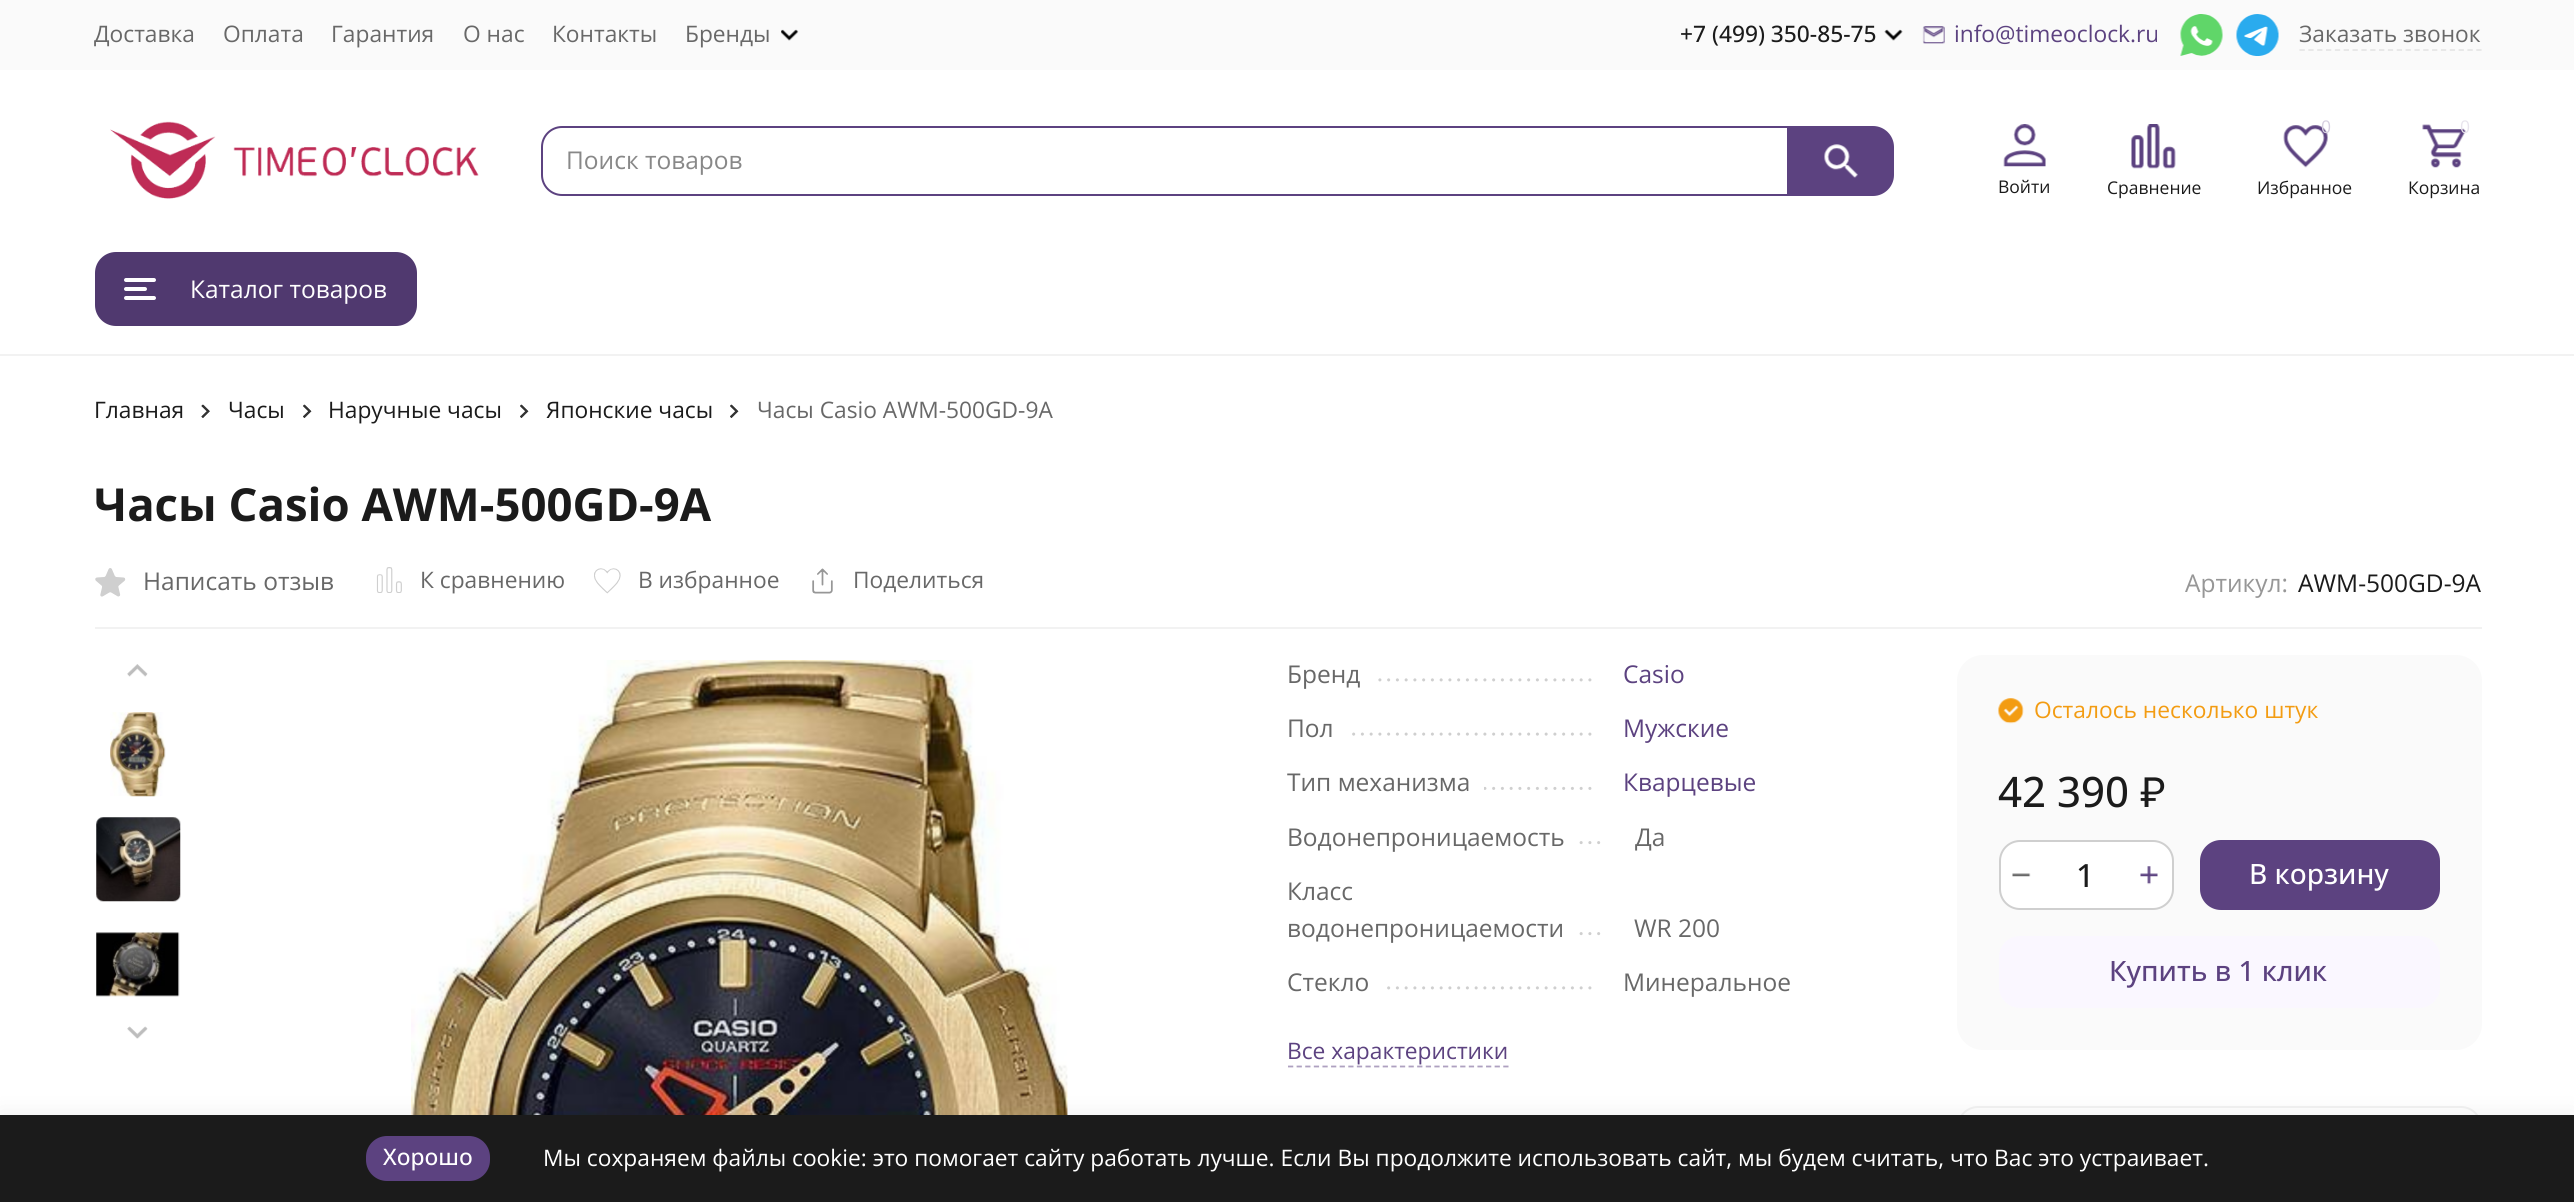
#include <cairo.h>
#include <math.h>
#include <stddef.h>

typedef struct { double x, y; const char *s; } line_t;

static void ink(cairo_t *ctx, unsigned color) {
    cairo_set_source_rgb(ctx, (color >> 16) / 255.0, (color >> 8 & 255) / 255.0, (color & 255) / 255.0);
}

static void round_path(cairo_t *ctx, double x, double y, double w, double h, double r) {
    cairo_new_sub_path(ctx);
    cairo_arc(ctx, x + w - r, y + h - r, r, 0, M_PI / 2);
    cairo_arc(ctx, x + r, y + h - r, r, M_PI / 2, M_PI);
    cairo_arc(ctx, x + r, y + r, r, M_PI, 1.5 * M_PI);
    cairo_arc(ctx, x + w - r, y + r, r, 1.5 * M_PI, 2 * M_PI);
    cairo_close_path(ctx);
}

static void blur_box(cairo_t *ctx, double x, double y, double w, double h, double r, double blur, double alpha) {
    cairo_push_group_with_content(ctx, CAIRO_CONTENT_ALPHA);
    cairo_set_operator(ctx, CAIRO_OPERATOR_SOURCE);
    for (int i = 15; i >= -15 && fmin(w, h) + blur * i / 3 > 0; i -= 2) {
        double e = blur * i / 6;
        cairo_set_source_rgba(ctx, 0, 0, 0, alpha * erfc((i - 1) / 8.5) / 2);
        round_path(ctx, x - e, y - e, w + 2 * e, h + 2 * e, fmax(0, fmin(r + e + blur * .6, fmin(w, h) / 2 + e)));
        cairo_fill(ctx);
    }
    cairo_pattern_t *soft = cairo_pop_group(ctx);
    cairo_mask(ctx, soft);
    cairo_pattern_destroy(soft);
}

static void paste(cairo_t *ctx, const char *path, double x, double y, double w, double h) {
    cairo_surface_t *image = cairo_image_surface_create_from_png(path);
    cairo_save(ctx);
    cairo_set_source_surface(ctx, image, x, y);
    cairo_rectangle(ctx, x, y, w, h);
    cairo_fill(ctx);
    cairo_restore(ctx);
    cairo_surface_destroy(image);
}

int main(void) {
    cairo_surface_t *surface = cairo_image_surface_create(CAIRO_FORMAT_RGB24, 2574, 1202);
    cairo_t *ctx = cairo_create(surface);
    cairo_font_options_t *options = cairo_font_options_create();
    cairo_font_options_set_hint_metrics(options, CAIRO_HINT_METRICS_OFF);
    cairo_font_options_set_hint_style(options, CAIRO_HINT_STYLE_NONE);
    cairo_set_font_options(ctx, options);
    cairo_set_miter_limit(ctx, 4);
    ink(ctx, 0xFFFFFF);
    cairo_paint(ctx);
    ink(ctx, 0xF2F2F2);
    cairo_rectangle(ctx, 0, 354, 2574, 2);
    cairo_fill(ctx);
    ink(ctx, 0xFAFAFA);
    cairo_rectangle(ctx, 0, 0, 2574, 70);
    cairo_fill(ctx);
    cairo_select_font_face(ctx, "Open Sans", CAIRO_FONT_SLANT_NORMAL, CAIRO_FONT_WEIGHT_NORMAL);
    cairo_set_font_size(ctx, 22.75);
    ink(ctx, 0x686868);
    {
        static const line_t items[] = {
            {94, 42, "Доставка"},
            {223, 42, "Оплата"},
            {331, 42, "Гарантия"},
            {463, 42, "О нас"},
            {552, 42, "Контакты"},
            {685, 42, "Бренды"},
        };
        for (size_t i = 0; i < sizeof items / sizeof *items; i++) {
            cairo_move_to(ctx, items[i].x, items[i].y);
            cairo_show_text(ctx, items[i].s);
        }
    }
    paste(ctx, "media/1.png", 781, 29, 18, 12);
    cairo_select_font_face(ctx, "Open Sans Medium", CAIRO_FONT_SLANT_NORMAL, CAIRO_FONT_WEIGHT_NORMAL);
    ink(ctx, 0x1B1B1B);
    cairo_move_to(ctx, 1680, 42);
    cairo_show_text(ctx, "+7 (499) 350-85-75");
    paste(ctx, "media/2.png", 1884, 29, 19, 12);
    paste(ctx, "media/3.png", 1922, 26, 23, 18);
    cairo_select_font_face(ctx, "Open Sans", CAIRO_FONT_SLANT_NORMAL, CAIRO_FONT_WEIGHT_NORMAL);
    ink(ctx, 0x5C4280);
    cairo_move_to(ctx, 1954, 42);
    cairo_show_text(ctx, "info@timeoclock.ru");
    paste(ctx, "media/4.png", 2180, 14, 43, 42);
    paste(ctx, "media/5.png", 2236, 14, 43, 42);
    ink(ctx, 0x686868);
    cairo_move_to(ctx, 2299, 42);
    cairo_show_text(ctx, "Заказать звонок");
    cairo_new_path(ctx);
    cairo_move_to(ctx, 2299.5, 50);
    cairo_line_to(ctx, 2481.5, 50);
    ink(ctx, 0xE5E5E5);
    cairo_set_line_width(ctx, 1.8);
    cairo_set_dash(ctx, (double[]){5.25, 3.59}, 2, 0);
    cairo_stroke(ctx);
    paste(ctx, "media/6.png", 110, 121, 369, 78);
    cairo_new_path(ctx);
    cairo_move_to(ctx, 562, 127);
    cairo_line_to(ctx, 1788, 127);
    cairo_line_to(ctx, 1788, 195);
    cairo_line_to(ctx, 562, 195);
    cairo_curve_to(ctx, 551, 195, 542, 186, 542, 175);
    cairo_line_to(ctx, 542, 147);
    cairo_curve_to(ctx, 542, 136, 551, 127, 562, 127);
    cairo_close_path(ctx);
    ink(ctx, 0x5C4280);
    cairo_set_line_width(ctx, 2);
    cairo_set_dash(ctx, NULL, 0, 0);
    cairo_stroke(ctx);
    cairo_set_font_size(ctx, 24.5);
    ink(ctx, 0x888888);
    cairo_move_to(ctx, 566, 169);
    cairo_show_text(ctx, "Поиск товаров");
    ink(ctx, 0x5C4280);
    cairo_new_path(ctx);
    cairo_move_to(ctx, 1789, 126);
    cairo_line_to(ctx, 1873, 126);
    cairo_curve_to(ctx, 1884.5, 126, 1894, 135.5, 1894, 147);
    cairo_line_to(ctx, 1894, 175);
    cairo_curve_to(ctx, 1894, 186.5, 1884.5, 196, 1873, 196);
    cairo_line_to(ctx, 1789, 196);
    cairo_close_path(ctx);
    cairo_fill(ctx);
    paste(ctx, "media/7.png", 1824, 144, 34, 34);
    paste(ctx, "media/8.png", 2003, 124, 43, 43);
    cairo_set_font_size(ctx, 17.5);
    ink(ctx, 0x1B1B1B);
    cairo_move_to(ctx, 1998, 193);
    cairo_show_text(ctx, "Войти");
    paste(ctx, "media/9.png", 2131, 124, 45, 45);
    cairo_move_to(ctx, 2107, 194);
    cairo_show_text(ctx, "Сравнение");
    paste(ctx, "media/10.png", 2283, 125, 45, 43);
    ink(ctx, 0xD7D0E0);
    cairo_move_to(ctx, 2321, 133);
    cairo_show_text(ctx, "0");
    ink(ctx, 0x1B1B1B);
    cairo_move_to(ctx, 2257, 194);
    cairo_show_text(ctx, "Избранное");
    paste(ctx, "media/11.png", 2422, 124, 44, 44);
    ink(ctx, 0xE8E4ED);
    cairo_move_to(ctx, 2460, 133);
    cairo_show_text(ctx, "0");
    ink(ctx, 0x1B1B1B);
    cairo_move_to(ctx, 2408, 194);
    cairo_show_text(ctx, "Корзина");
    ink(ctx, 0x50396F);
    round_path(ctx, 95, 252, 322, 74, 21);
    cairo_fill(ctx);
    ink(ctx, 0xFFFFFF);
    round_path(ctx, 124, 278, 32, 4, 2);
    cairo_fill(ctx);
    round_path(ctx, 124, 287, 23, 4, 2);
    cairo_fill(ctx);
    round_path(ctx, 124, 296, 32, 4, 2);
    cairo_fill(ctx);
    cairo_set_font_size(ctx, 24.5);
    cairo_move_to(ctx, 190, 298);
    cairo_show_text(ctx, "Каталог товаров");
    cairo_set_font_size(ctx, 22.75);
    ink(ctx, 0x1B1B1B);
    cairo_move_to(ctx, 94, 418);
    cairo_show_text(ctx, "Главная");
    paste(ctx, "media/12.png", 201, 404, 9, 14);
    cairo_move_to(ctx, 228, 418);
    cairo_show_text(ctx, "Часы");
    paste(ctx, "media/13.png", 303, 404, 9, 14);
    cairo_move_to(ctx, 328, 418);
    cairo_show_text(ctx, "Наручные часы");
    paste(ctx, "media/13.png", 520, 404, 9, 14);
    cairo_move_to(ctx, 546, 418);
    cairo_show_text(ctx, "Японские часы");
    paste(ctx, "media/13.png", 730, 404, 9, 14);
    ink(ctx, 0x686868);
    cairo_move_to(ctx, 757, 418);
    cairo_show_text(ctx, "Часы Casio AWM-500GD-9A");
    ink(ctx, 0xF2F2F2);
    cairo_rectangle(ctx, 95, 627, 2387, 2);
    cairo_fill(ctx);
    cairo_select_font_face(ctx, "Open Sans", CAIRO_FONT_SLANT_NORMAL, CAIRO_FONT_WEIGHT_BOLD);
    cairo_set_font_size(ctx, 45.5);
    ink(ctx, 0x1B1B1B);
    cairo_move_to(ctx, 94, 521);
    cairo_show_text(ctx, "Часы Casio AWM-500GD-9A");
    paste(ctx, "media/14.png", 95, 568, 31, 29);
    cairo_select_font_face(ctx, "Open Sans", CAIRO_FONT_SLANT_NORMAL, CAIRO_FONT_WEIGHT_NORMAL);
    cairo_set_font_size(ctx, 24.5);
    ink(ctx, 0x686868);
    cairo_move_to(ctx, 143, 590);
    cairo_show_text(ctx, "Написать отзыв");
    paste(ctx, "media/15.png", 376, 567, 26, 26);
    cairo_set_font_size(ctx, 22.75);
    cairo_move_to(ctx, 420, 588);
    cairo_show_text(ctx, "К сравнению");
    paste(ctx, "media/16.png", 594, 568, 27, 26);
    cairo_move_to(ctx, 638, 588);
    cairo_show_text(ctx, "В избранное");
    paste(ctx, "media/17.png", 812, 568, 21, 26);
    cairo_move_to(ctx, 853, 588);
    cairo_show_text(ctx, "Поделиться");
    cairo_set_font_size(ctx, 24.5);
    ink(ctx, 0x979797);
    cairo_move_to(ctx, 2185, 592);
    cairo_show_text(ctx, "Артикул:");
    ink(ctx, 0x1B1B1B);
    cairo_move_to(ctx, 2298, 592);
    cairo_show_text(ctx, "AWM-500GD-9A");
    paste(ctx, "media/18.png", 127, 664, 21, 13);
    paste(ctx, "media/19.png", 110, 712, 56, 85);
    paste(ctx, "media/20.png", 96, 817, 85, 85);
    paste(ctx, "media/21.png", 96, 932, 84, 65);
    paste(ctx, "media/22.png", 127, 1026, 21, 13);
    paste(ctx, "media/23.png", 411, 660, 657, 455);
    cairo_new_path(ctx);
    cairo_move_to(ctx, 1292.4, 679.9);
    cairo_line_to(ctx, 1590.2, 679.9);
    ink(ctx, 0xCFCFCF);
    cairo_set_line_width(ctx, 3.1);
    cairo_set_line_cap(ctx, CAIRO_LINE_CAP_ROUND);
    cairo_set_dash(ctx, (double[]){0, 8.75}, 2, 0);
    cairo_stroke(ctx);
    ink(ctx, 0xFFFFFF);
    cairo_rectangle(ctx, 1290, 678, 83, 4);
    cairo_fill(ctx);
    ink(ctx, 0x686868);
    cairo_move_to(ctx, 1287, 683);
    cairo_show_text(ctx, "Бренд");
    ink(ctx, 0x5C4280);
    cairo_move_to(ctx, 1623, 683);
    cairo_show_text(ctx, "Casio");
    cairo_new_path(ctx);
    cairo_move_to(ctx, 1292.4, 734.1);
    cairo_line_to(ctx, 1590.2, 734.1);
    ink(ctx, 0xCFCFCF);
    cairo_stroke(ctx);
    ink(ctx, 0xFFFFFF);
    cairo_rectangle(ctx, 1290, 732, 57, 4);
    cairo_fill(ctx);
    ink(ctx, 0x686868);
    cairo_move_to(ctx, 1287, 737);
    cairo_show_text(ctx, "Пол");
    ink(ctx, 0x5C4280);
    cairo_move_to(ctx, 1623, 737);
    cairo_show_text(ctx, "Мужские");
    cairo_new_path(ctx);
    cairo_move_to(ctx, 1292.4, 788.4);
    cairo_line_to(ctx, 1590.2, 788.4);
    ink(ctx, 0xCFCFCF);
    cairo_stroke(ctx);
    ink(ctx, 0xFFFFFF);
    cairo_rectangle(ctx, 1290, 786, 194, 4);
    cairo_fill(ctx);
    ink(ctx, 0x686868);
    cairo_move_to(ctx, 1287, 791);
    cairo_show_text(ctx, "Тип механизма");
    ink(ctx, 0x5C4280);
    cairo_move_to(ctx, 1623, 791);
    cairo_show_text(ctx, "Кварцевые");
    cairo_new_path(ctx);
    cairo_move_to(ctx, 1292.4, 842.6);
    cairo_line_to(ctx, 1599, 842.6);
    ink(ctx, 0xCFCFCF);
    cairo_stroke(ctx);
    ink(ctx, 0xFFFFFF);
    cairo_rectangle(ctx, 1290, 841, 284, 4);
    cairo_fill(ctx);
    ink(ctx, 0x686868);
    cairo_move_to(ctx, 1287, 846);
    cairo_show_text(ctx, "Водонепроницаемость");
    cairo_move_to(ctx, 1635, 846);
    cairo_show_text(ctx, "Да");
    cairo_new_path(ctx);
    cairo_move_to(ctx, 1292.4, 933.6);
    cairo_line_to(ctx, 1599, 933.6);
    ink(ctx, 0xCFCFCF);
    cairo_stroke(ctx);
    ink(ctx, 0x686868);
    cairo_move_to(ctx, 1287, 900);
    cairo_show_text(ctx, "Класс");
    ink(ctx, 0xFFFFFF);
    cairo_rectangle(ctx, 1290, 932, 284, 4);
    cairo_fill(ctx);
    ink(ctx, 0x686868);
    cairo_move_to(ctx, 1287, 937);
    cairo_show_text(ctx, "водонепроницаемости");
    cairo_move_to(ctx, 1634, 937);
    cairo_show_text(ctx, "WR 200");
    cairo_new_path(ctx);
    cairo_move_to(ctx, 1292.4, 987.9);
    cairo_line_to(ctx, 1590.2, 987.9);
    ink(ctx, 0xCFCFCF);
    cairo_stroke(ctx);
    ink(ctx, 0xFFFFFF);
    cairo_rectangle(ctx, 1290, 986, 92, 4);
    cairo_fill(ctx);
    ink(ctx, 0x686868);
    cairo_move_to(ctx, 1287, 991);
    cairo_show_text(ctx, "Стекло");
    cairo_move_to(ctx, 1623, 991);
    cairo_show_text(ctx, "Минеральное");
    cairo_set_font_size(ctx, 22.75);
    ink(ctx, 0x5C4280);
    cairo_move_to(ctx, 1287, 1059);
    cairo_show_text(ctx, "Все характеристики");
    cairo_new_path(ctx);
    cairo_move_to(ctx, 1288, 1066.5);
    cairo_line_to(ctx, 1508.5, 1066.5);
    ink(ctx, 0xAEA1C0);
    cairo_set_line_width(ctx, 1.8);
    cairo_set_line_cap(ctx, CAIRO_LINE_CAP_BUTT);
    cairo_set_dash(ctx, (double[]){5.25, 3.36}, 2, 0);
    cairo_stroke(ctx);
    ink(ctx, 0xFAFAFA);
    round_path(ctx, 1957, 655, 525, 395, 26);
    cairo_fill(ctx);
    paste(ctx, "media/24.png", 1998, 698, 26, 26);
    ink(ctx, 0xF39C12);
    cairo_move_to(ctx, 2034, 718);
    cairo_show_text(ctx, "Осталось несколько штук");
    cairo_select_font_face(ctx, "Open Sans Medium", CAIRO_FONT_SLANT_NORMAL, CAIRO_FONT_WEIGHT_NORMAL);
    cairo_set_font_size(ctx, 42);
    ink(ctx, 0x1B1B1B);
    cairo_move_to(ctx, 1998, 807);
    cairo_show_text(ctx, "42 390");
    cairo_select_font_face(ctx, "Nunito Sans Medium", CAIRO_FONT_SLANT_NORMAL, CAIRO_FONT_WEIGHT_NORMAL);
    cairo_move_to(ctx, 2140, 807);
    cairo_show_text(ctx, "₽");
    ink(ctx, 0xFFFFFF);
    round_path(ctx, 2000, 841, 173, 68, 20);
    cairo_fill_preserve(ctx);
    ink(ctx, 0xCFCFCF);
    cairo_set_line_width(ctx, 2);
    cairo_set_dash(ctx, NULL, 0, 0);
    cairo_stroke(ctx);
    paste(ctx, "media/25.png", 2012, 873, 19, 4);
    cairo_select_font_face(ctx, "Open Sans Medium", CAIRO_FONT_SLANT_NORMAL, CAIRO_FONT_WEIGHT_NORMAL);
    cairo_set_font_size(ctx, 32);
    ink(ctx, 0x1B1B1B);
    cairo_move_to(ctx, 2076, 887);
    cairo_show_text(ctx, "1");
    paste(ctx, "media/26.png", 2140, 866, 18, 19);
    ink(ctx, 0x5C4280);
    round_path(ctx, 2200, 840, 240, 70, 21);
    cairo_fill(ctx);
    cairo_set_font_size(ctx, 28);
    ink(ctx, 0xFFFFFF);
    cairo_move_to(ctx, 2249, 884);
    cairo_show_text(ctx, "В корзину");
    ink(ctx, 0xFAF7FF);
    round_path(ctx, 1999, 936, 441, 72, 21);
    cairo_fill(ctx);
    ink(ctx, 0x5C4280);
    cairo_move_to(ctx, 2109, 981);
    cairo_show_text(ctx, "Купить в 1 клик");
    round_path(ctx, 1958, 1107, 523, 73, 20);
    ink(ctx, 0xF2F2F2);
    cairo_stroke(ctx);
    ink(ctx, 0x000000);
    blur_box(ctx, 0, 1115, 2574, 87, 0, 13, 0.07);
    ink(ctx, 0x1B1B1B);
    cairo_rectangle(ctx, 0, 1115, 2574, 87);
    cairo_fill(ctx);
    ink(ctx, 0x5C4280);
    round_path(ctx, 366, 1136, 124, 45, 21);
    cairo_fill(ctx);
    cairo_set_font_size(ctx, 22.75);
    ink(ctx, 0xFFFFFF);
    cairo_move_to(ctx, 383, 1165);
    cairo_show_text(ctx, "Хорошо");
    cairo_select_font_face(ctx, "Open Sans", CAIRO_FONT_SLANT_NORMAL, CAIRO_FONT_WEIGHT_NORMAL);
    cairo_move_to(ctx, 543, 1166);
    cairo_show_text(ctx, "Мы сохраняем файлы cookie: это помогает сайту работать лучше. Если Вы продолжите использовать сайт, мы будем считать, что Вас это устраивает.");
    cairo_surface_write_to_png(surface, "image.png");
    cairo_font_options_destroy(options);
    cairo_destroy(ctx);
    cairo_surface_destroy(surface);
    return 0;
}
